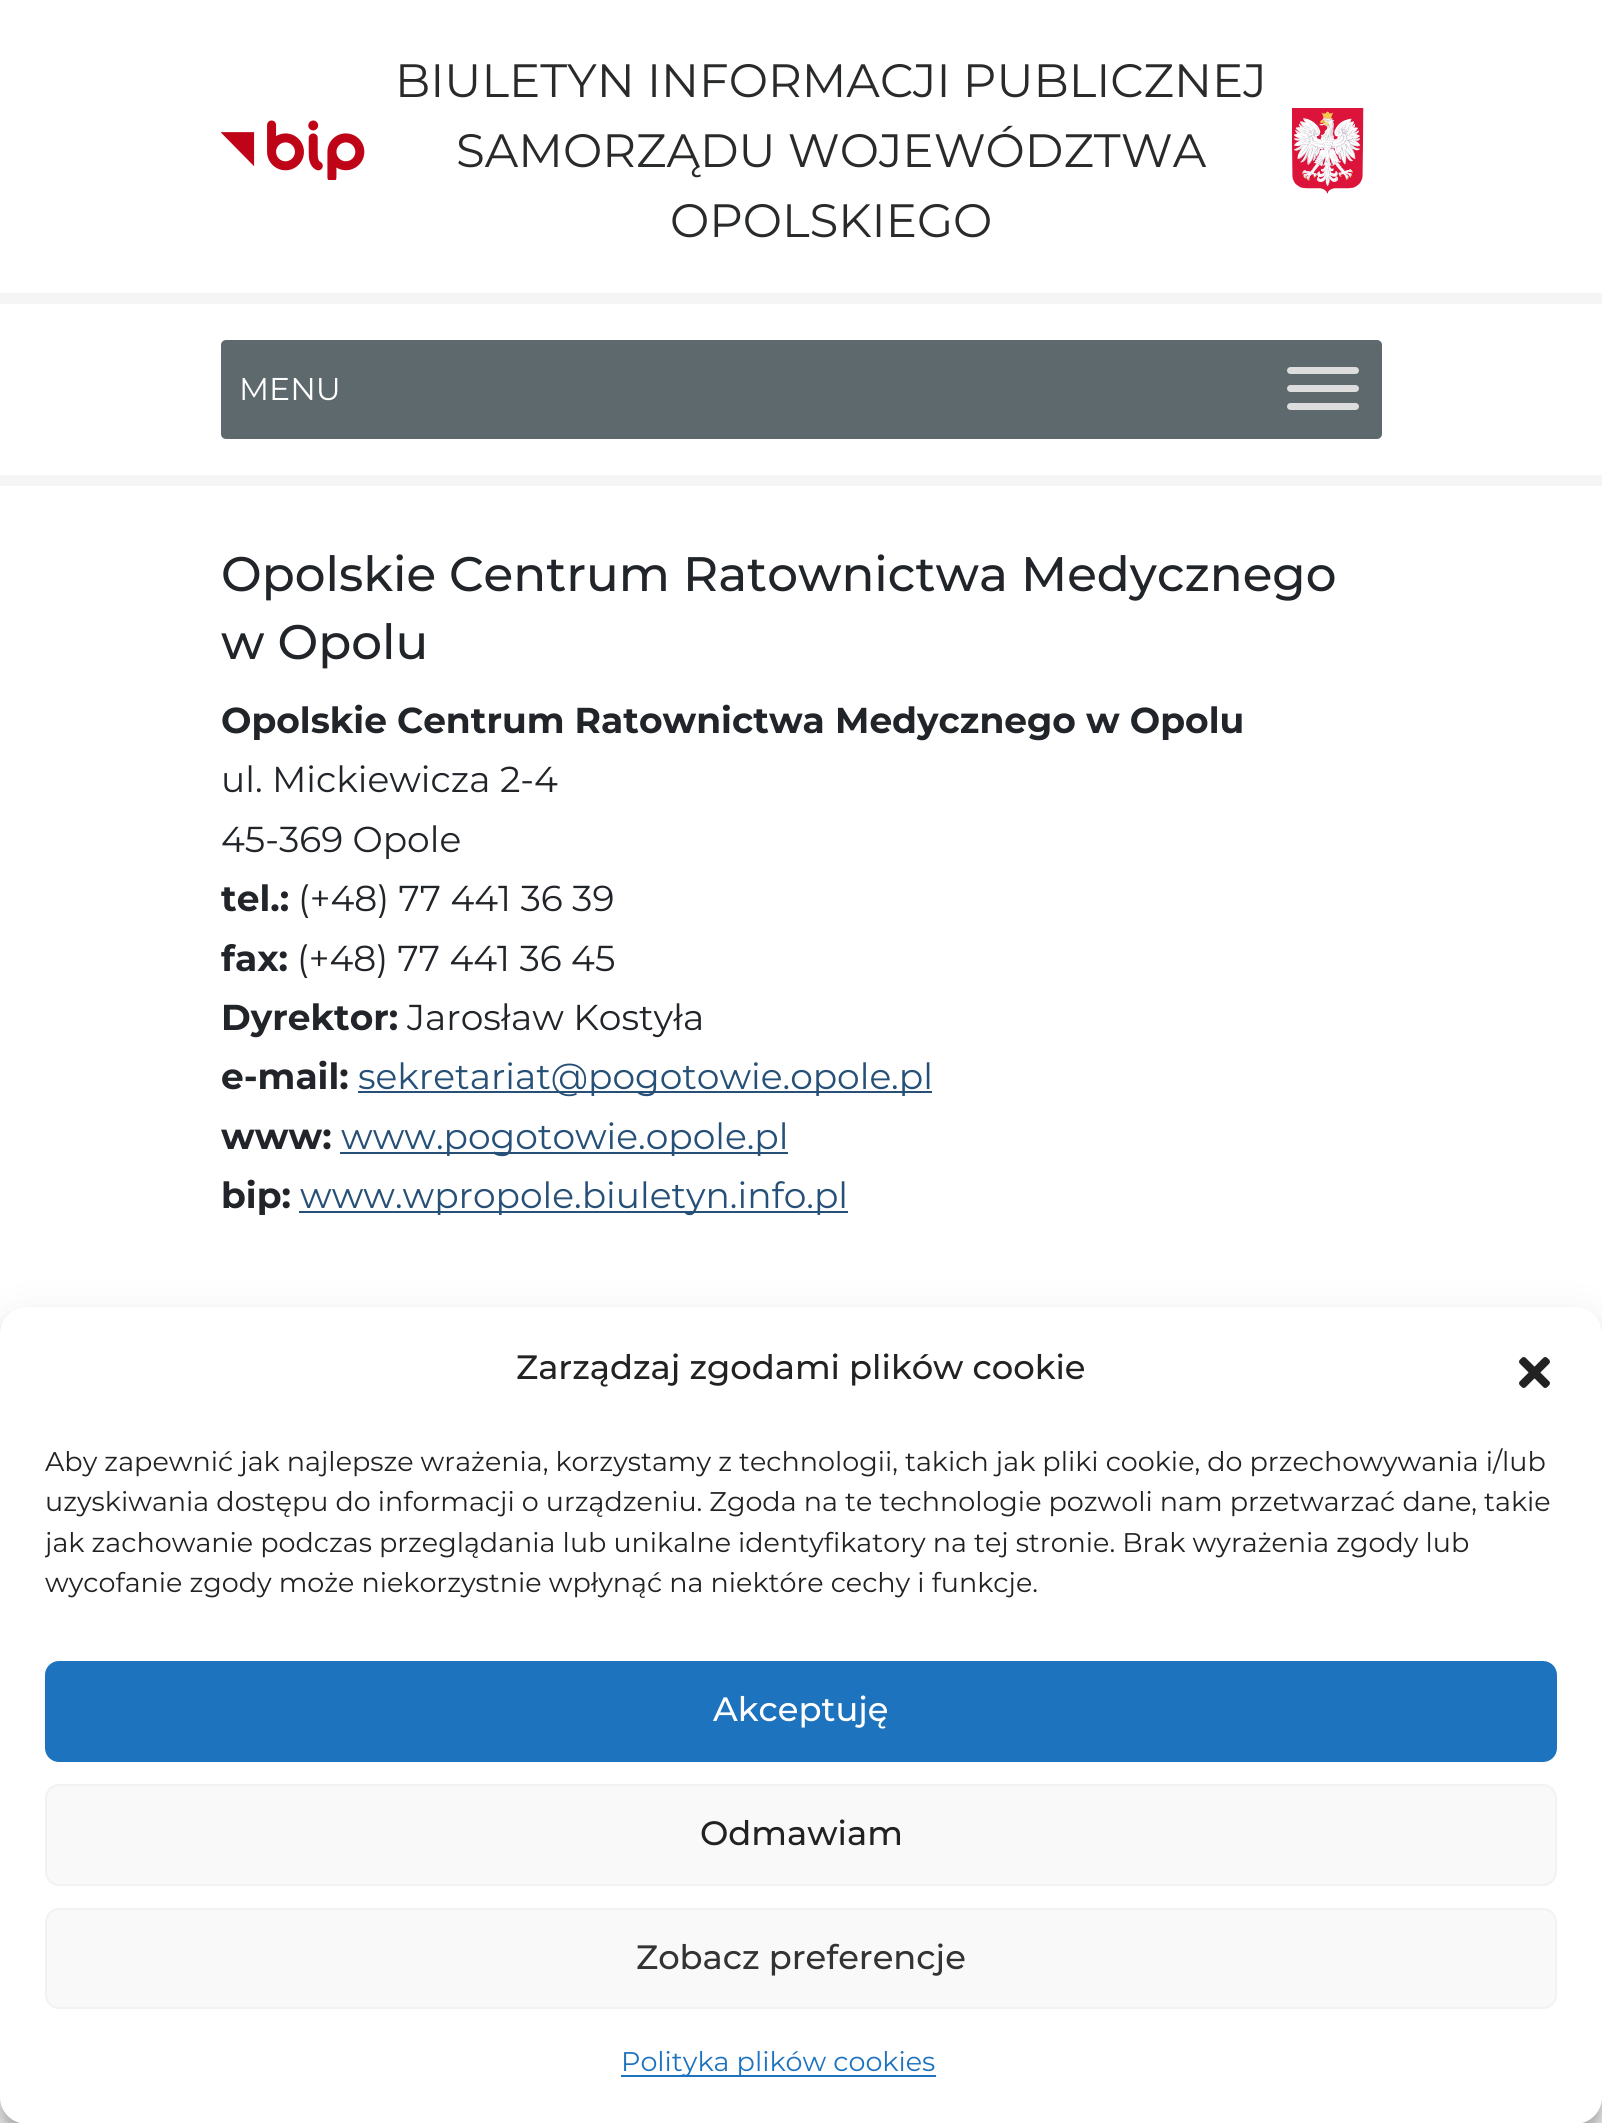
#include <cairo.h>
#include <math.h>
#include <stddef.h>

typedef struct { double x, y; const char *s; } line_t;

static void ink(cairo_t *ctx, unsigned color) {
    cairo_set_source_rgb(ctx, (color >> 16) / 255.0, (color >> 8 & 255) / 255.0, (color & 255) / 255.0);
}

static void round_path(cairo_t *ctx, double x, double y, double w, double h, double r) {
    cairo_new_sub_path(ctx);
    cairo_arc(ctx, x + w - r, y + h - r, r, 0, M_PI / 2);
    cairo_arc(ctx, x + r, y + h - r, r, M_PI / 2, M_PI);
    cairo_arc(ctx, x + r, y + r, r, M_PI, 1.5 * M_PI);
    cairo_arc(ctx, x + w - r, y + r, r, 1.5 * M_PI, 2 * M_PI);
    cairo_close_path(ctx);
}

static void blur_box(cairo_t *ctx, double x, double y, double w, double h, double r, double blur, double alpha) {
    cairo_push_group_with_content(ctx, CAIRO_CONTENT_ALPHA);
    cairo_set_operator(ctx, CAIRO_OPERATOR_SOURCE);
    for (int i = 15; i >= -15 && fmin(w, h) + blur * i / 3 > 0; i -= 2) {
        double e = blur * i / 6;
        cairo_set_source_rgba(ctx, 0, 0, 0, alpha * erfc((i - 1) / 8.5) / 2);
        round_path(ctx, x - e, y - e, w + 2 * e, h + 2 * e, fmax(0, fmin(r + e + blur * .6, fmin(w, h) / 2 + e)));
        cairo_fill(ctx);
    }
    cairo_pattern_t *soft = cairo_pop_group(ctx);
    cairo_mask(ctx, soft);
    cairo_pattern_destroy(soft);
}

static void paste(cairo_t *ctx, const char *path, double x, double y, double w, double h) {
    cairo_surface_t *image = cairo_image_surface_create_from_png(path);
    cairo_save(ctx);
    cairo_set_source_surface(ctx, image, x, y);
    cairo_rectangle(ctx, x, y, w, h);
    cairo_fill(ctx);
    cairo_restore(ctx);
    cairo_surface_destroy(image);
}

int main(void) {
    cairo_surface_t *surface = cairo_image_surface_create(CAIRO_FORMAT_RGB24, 1602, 2123);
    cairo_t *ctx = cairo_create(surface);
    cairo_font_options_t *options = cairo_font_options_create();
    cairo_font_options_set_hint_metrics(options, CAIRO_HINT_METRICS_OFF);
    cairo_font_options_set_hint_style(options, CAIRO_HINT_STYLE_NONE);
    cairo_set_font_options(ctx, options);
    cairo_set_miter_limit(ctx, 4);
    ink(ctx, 0xFFFFFF);
    cairo_paint(ctx);
    paste(ctx, "media/1.png", 221, 120, 144, 60);
    cairo_select_font_face(ctx, "Montserrat", CAIRO_FONT_SLANT_NORMAL, CAIRO_FONT_WEIGHT_NORMAL);
    cairo_set_font_size(ctx, 46.75);
    ink(ctx, 0x292A2B);
    {
        static const line_t items[] = {
            {395, 97, "BIULETYN INFORMACJI PUBLICZNEJ"},
            {456, 167, "SAMORZĄDU WOJEWÓDZTWA"},
            {670, 237, "OPOLSKIEGO"},
        };
        for (size_t i = 0; i < sizeof items / sizeof *items; i++) {
            cairo_move_to(ctx, items[i].x, items[i].y);
            cairo_show_text(ctx, items[i].s);
        }
    }
    paste(ctx, "media/2.png", 1292, 108, 72, 86);
    ink(ctx, 0xF5F5F5);
    cairo_rectangle(ctx, 0, 293, 1602, 11);
    cairo_fill(ctx);
    ink(ctx, 0x5E696D);
    round_path(ctx, 221, 340, 1161, 99, 5);
    cairo_fill(ctx);
    cairo_set_font_size(ctx, 31.5);
    ink(ctx, 0xFFFFFF);
    cairo_move_to(ctx, 239, 400);
    cairo_show_text(ctx, "MENU");
    ink(ctx, 0xDDDDDD);
    round_path(ctx, 1287, 367, 72, 7, 3.5);
    cairo_fill(ctx);
    round_path(ctx, 1287, 385, 72, 7, 3.5);
    cairo_fill(ctx);
    round_path(ctx, 1287, 403, 72, 7, 3.5);
    cairo_fill(ctx);
    ink(ctx, 0xF5F5F5);
    cairo_rectangle(ctx, 0, 475, 1602, 11);
    cairo_fill(ctx);
    cairo_select_font_face(ctx, "Montserrat Medium", CAIRO_FONT_SLANT_NORMAL, CAIRO_FONT_WEIGHT_NORMAL);
    cairo_set_font_size(ctx, 48.4);
    ink(ctx, 0x212529);
    cairo_move_to(ctx, 221, 591);
    cairo_show_text(ctx, "Opolskie Centrum Ratownictwa Medycznego");
    cairo_move_to(ctx, 221, 659);
    cairo_show_text(ctx, "w Opolu");
    cairo_select_font_face(ctx, "Montserrat", CAIRO_FONT_SLANT_NORMAL, CAIRO_FONT_WEIGHT_BOLD);
    cairo_set_font_size(ctx, 36);
    cairo_move_to(ctx, 221, 733);
    cairo_show_text(ctx, "Opolskie Centrum Ratownictwa Medycznego w Opolu");
    cairo_select_font_face(ctx, "Montserrat", CAIRO_FONT_SLANT_NORMAL, CAIRO_FONT_WEIGHT_NORMAL);
    cairo_move_to(ctx, 221, 792);
    cairo_show_text(ctx, "ul. Mickiewicza 2-4");
    cairo_move_to(ctx, 221, 852);
    cairo_show_text(ctx, "45-369 Opole");
    cairo_select_font_face(ctx, "Montserrat", CAIRO_FONT_SLANT_NORMAL, CAIRO_FONT_WEIGHT_BOLD);
    cairo_move_to(ctx, 221, 911);
    cairo_show_text(ctx, "tel.:");
    cairo_select_font_face(ctx, "Montserrat", CAIRO_FONT_SLANT_NORMAL, CAIRO_FONT_WEIGHT_NORMAL);
    cairo_move_to(ctx, 298, 911);
    cairo_show_text(ctx, "(+48) 77 441 36 39");
    cairo_select_font_face(ctx, "Montserrat", CAIRO_FONT_SLANT_NORMAL, CAIRO_FONT_WEIGHT_BOLD);
    cairo_move_to(ctx, 221, 971);
    cairo_show_text(ctx, "fax:");
    cairo_select_font_face(ctx, "Montserrat", CAIRO_FONT_SLANT_NORMAL, CAIRO_FONT_WEIGHT_NORMAL);
    cairo_move_to(ctx, 297, 971);
    cairo_show_text(ctx, "(+48) 77 441 36 45");
    cairo_select_font_face(ctx, "Montserrat", CAIRO_FONT_SLANT_NORMAL, CAIRO_FONT_WEIGHT_BOLD);
    cairo_move_to(ctx, 221, 1030);
    cairo_show_text(ctx, "Dyrektor:");
    cairo_select_font_face(ctx, "Montserrat", CAIRO_FONT_SLANT_NORMAL, CAIRO_FONT_WEIGHT_NORMAL);
    cairo_move_to(ctx, 407, 1030);
    cairo_show_text(ctx, "Jarosław Kostyła");
    cairo_select_font_face(ctx, "Montserrat", CAIRO_FONT_SLANT_NORMAL, CAIRO_FONT_WEIGHT_BOLD);
    cairo_move_to(ctx, 221, 1089);
    cairo_show_text(ctx, "e-mail:");
    ink(ctx, 0x265077);
    cairo_rectangle(ctx, 358, 1091, 574, 2);
    cairo_fill(ctx);
    cairo_select_font_face(ctx, "Montserrat", CAIRO_FONT_SLANT_NORMAL, CAIRO_FONT_WEIGHT_NORMAL);
    cairo_move_to(ctx, 358, 1089);
    cairo_show_text(ctx, "sekretariat@pogotowie.opole.pl");
    cairo_select_font_face(ctx, "Montserrat", CAIRO_FONT_SLANT_NORMAL, CAIRO_FONT_WEIGHT_BOLD);
    ink(ctx, 0x212529);
    cairo_move_to(ctx, 221, 1149);
    cairo_show_text(ctx, "www:");
    ink(ctx, 0x265077);
    cairo_rectangle(ctx, 340, 1152, 448, 2);
    cairo_fill(ctx);
    cairo_select_font_face(ctx, "Montserrat", CAIRO_FONT_SLANT_NORMAL, CAIRO_FONT_WEIGHT_NORMAL);
    cairo_move_to(ctx, 341, 1149);
    cairo_show_text(ctx, "www.pogotowie.opole.pl");
    cairo_select_font_face(ctx, "Montserrat", CAIRO_FONT_SLANT_NORMAL, CAIRO_FONT_WEIGHT_BOLD);
    ink(ctx, 0x212529);
    cairo_move_to(ctx, 221, 1208);
    cairo_show_text(ctx, "bip:");
    ink(ctx, 0x265077);
    cairo_rectangle(ctx, 299, 1211, 549, 2);
    cairo_fill(ctx);
    cairo_select_font_face(ctx, "Montserrat", CAIRO_FONT_SLANT_NORMAL, CAIRO_FONT_WEIGHT_NORMAL);
    cairo_move_to(ctx, 300, 1208);
    cairo_show_text(ctx, "www.wpropole.biuletyn.info.pl");
    ink(ctx, 0x000000);
    blur_box(ctx, 0, 1321, 1602, 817, 27, 7, 0.23);
    blur_box(ctx, 0, 1330, 1602, 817, 27, 22.5, 0.19);
    ink(ctx, 0xFFFFFF);
    round_path(ctx, 0, 1307, 1602, 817, 27);
    cairo_fill(ctx);
    cairo_select_font_face(ctx, "Montserrat Medium", CAIRO_FONT_SLANT_NORMAL, CAIRO_FONT_WEIGHT_NORMAL);
    cairo_set_font_size(ctx, 33.75);
    ink(ctx, 0x222222);
    cairo_move_to(ctx, 516, 1379);
    cairo_show_text(ctx, "Zarządzaj zgodami plików cookie");
    paste(ctx, "media/3.png", 1519, 1357, 31, 31);
    cairo_select_font_face(ctx, "Montserrat", CAIRO_FONT_SLANT_NORMAL, CAIRO_FONT_WEIGHT_NORMAL);
    cairo_set_font_size(ctx, 27);
    cairo_move_to(ctx, 45, 1471);
    cairo_show_text(ctx, "Aby zapewnić jak najlepsze wrażenia, korzystamy z technologii, takich jak pliki cookie, do przechowywania i/lub");
    cairo_move_to(ctx, 45, 1511);
    cairo_show_text(ctx, "uzyskiwania dostępu do informacji o urządzeniu. Zgoda na te technologie pozwoli nam przetwarzać dane, takie");
    cairo_save(ctx);
    cairo_rectangle(ctx, 45, 1442, 1512, 174);
    cairo_clip(ctx);
    cairo_move_to(ctx, 45, 1552);
    cairo_show_text(ctx, "jak zachowanie podczas przeglądania lub unikalne identyfikatory na tej stronie. Brak wyrażenia zgody lub");
    cairo_restore(ctx);
    cairo_move_to(ctx, 45, 1592);
    cairo_show_text(ctx, "wycofanie zgody może niekorzystnie wpłynąć na niektóre cechy i funkcje.");
    ink(ctx, 0x1E73BE);
    round_path(ctx, 46, 1662, 1510, 99, 13);
    cairo_fill_preserve(ctx);
    cairo_stroke(ctx);
    cairo_select_font_face(ctx, "Montserrat Medium", CAIRO_FONT_SLANT_NORMAL, CAIRO_FONT_WEIGHT_NORMAL);
    cairo_set_font_size(ctx, 33.75);
    ink(ctx, 0xFFFFFF);
    cairo_move_to(ctx, 713, 1721);
    cairo_show_text(ctx, "Akceptuję");
    ink(ctx, 0xF9F9F9);
    round_path(ctx, 46, 1785, 1510, 100, 13);
    cairo_fill_preserve(ctx);
    ink(ctx, 0xF2F2F2);
    cairo_stroke(ctx);
    ink(ctx, 0x222222);
    cairo_move_to(ctx, 700, 1845);
    cairo_show_text(ctx, "Odmawiam");
    ink(ctx, 0xF9F9F9);
    round_path(ctx, 46, 1909, 1510, 99, 13);
    cairo_fill_preserve(ctx);
    ink(ctx, 0xF2F2F2);
    cairo_stroke(ctx);
    ink(ctx, 0x333333);
    cairo_move_to(ctx, 636, 1969);
    cairo_show_text(ctx, "Zobacz preferencje");
    ink(ctx, 0x1E73BE);
    cairo_rectangle(ctx, 621, 2075, 315, 2);
    cairo_fill(ctx);
    cairo_select_font_face(ctx, "Montserrat", CAIRO_FONT_SLANT_NORMAL, CAIRO_FONT_WEIGHT_NORMAL);
    cairo_set_font_size(ctx, 27);
    cairo_move_to(ctx, 621, 2071);
    cairo_show_text(ctx, "Polityka plików cookies");
    cairo_surface_write_to_png(surface, "image.png");
    cairo_font_options_destroy(options);
    cairo_destroy(ctx);
    cairo_surface_destroy(surface);
    return 0;
}
